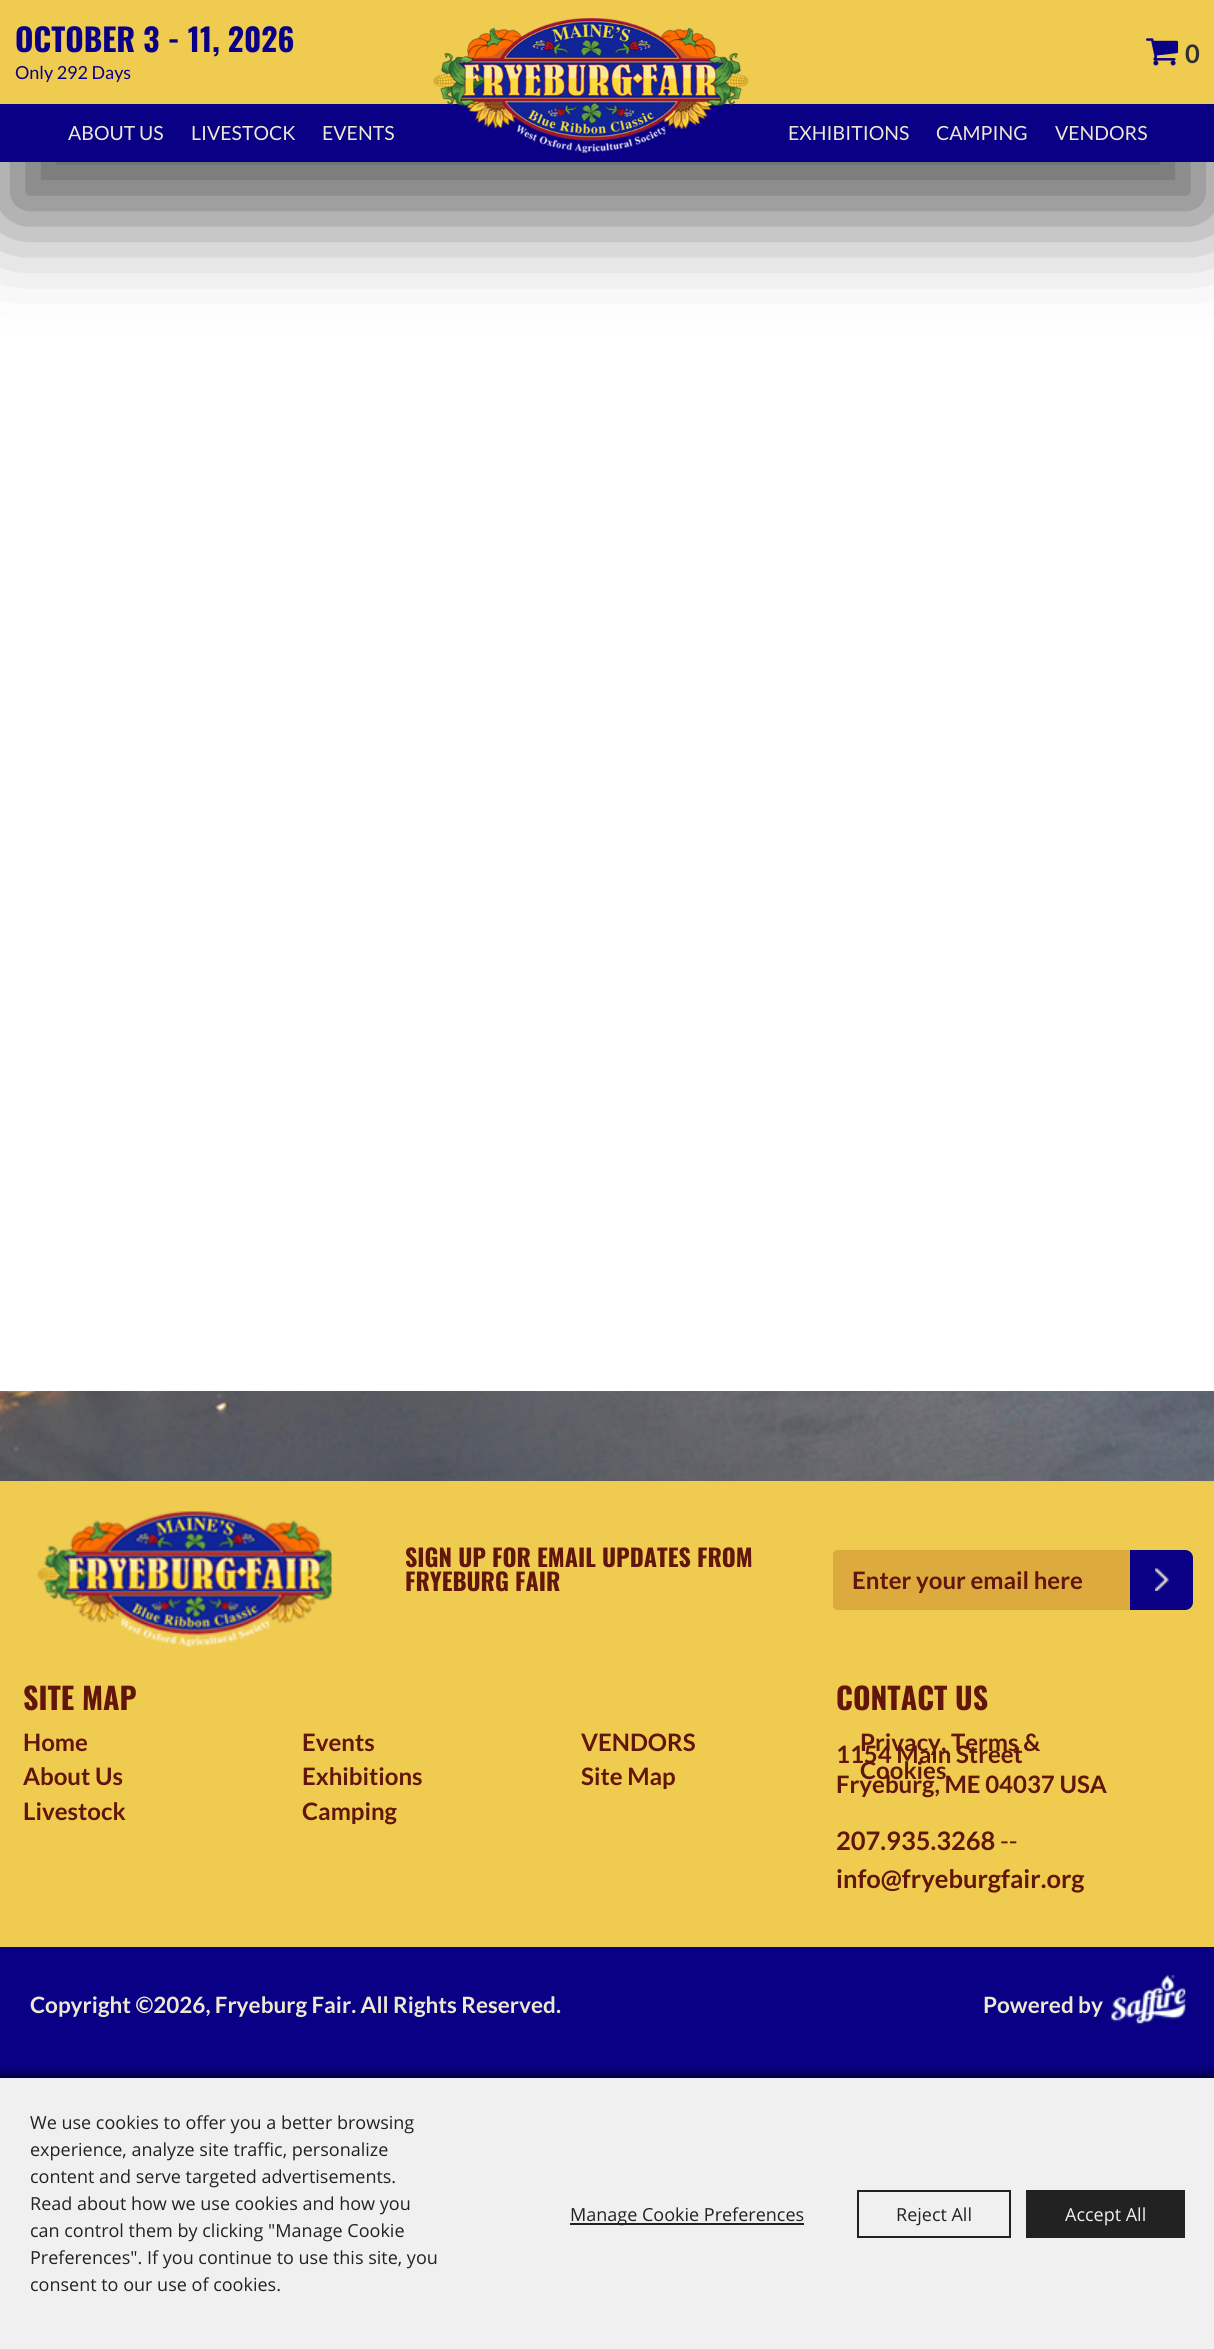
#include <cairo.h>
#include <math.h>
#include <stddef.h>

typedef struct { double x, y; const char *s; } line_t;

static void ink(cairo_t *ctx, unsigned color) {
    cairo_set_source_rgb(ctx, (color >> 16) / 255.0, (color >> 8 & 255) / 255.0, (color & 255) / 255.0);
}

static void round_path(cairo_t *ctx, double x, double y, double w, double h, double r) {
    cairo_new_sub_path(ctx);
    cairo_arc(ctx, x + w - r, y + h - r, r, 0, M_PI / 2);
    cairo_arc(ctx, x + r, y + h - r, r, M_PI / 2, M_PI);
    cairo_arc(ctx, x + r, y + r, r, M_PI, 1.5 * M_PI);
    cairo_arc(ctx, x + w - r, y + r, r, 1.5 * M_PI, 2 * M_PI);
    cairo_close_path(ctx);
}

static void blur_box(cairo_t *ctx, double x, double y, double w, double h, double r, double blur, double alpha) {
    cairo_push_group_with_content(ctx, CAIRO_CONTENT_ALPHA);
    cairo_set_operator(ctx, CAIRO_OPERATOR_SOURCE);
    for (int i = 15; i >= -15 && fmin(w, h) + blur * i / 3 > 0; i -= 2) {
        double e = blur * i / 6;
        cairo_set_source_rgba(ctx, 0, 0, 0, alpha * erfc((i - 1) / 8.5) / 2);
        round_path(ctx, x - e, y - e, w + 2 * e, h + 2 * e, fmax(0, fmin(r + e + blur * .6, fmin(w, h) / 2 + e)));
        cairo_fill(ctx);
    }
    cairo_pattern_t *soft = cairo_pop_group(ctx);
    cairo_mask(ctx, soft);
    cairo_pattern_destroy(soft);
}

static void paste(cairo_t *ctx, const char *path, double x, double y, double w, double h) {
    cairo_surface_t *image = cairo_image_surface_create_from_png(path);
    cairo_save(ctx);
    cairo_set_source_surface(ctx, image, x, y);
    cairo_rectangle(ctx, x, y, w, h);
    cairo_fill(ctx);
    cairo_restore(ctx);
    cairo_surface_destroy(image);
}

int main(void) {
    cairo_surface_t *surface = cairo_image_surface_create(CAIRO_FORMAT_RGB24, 1214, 2349);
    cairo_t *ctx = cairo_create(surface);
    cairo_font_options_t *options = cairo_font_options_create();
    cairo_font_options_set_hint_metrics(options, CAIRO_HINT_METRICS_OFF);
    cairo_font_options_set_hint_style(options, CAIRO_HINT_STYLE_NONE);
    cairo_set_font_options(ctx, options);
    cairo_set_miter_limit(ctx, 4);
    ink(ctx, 0xFFFFFF);
    cairo_paint(ctx);
    paste(ctx, "media/1.png", 0, 1391, 1214, 90);
    ink(ctx, 0x000000);
    blur_box(ctx, 2, 60, 1212, 159, 0, 46.5, 0.6);
    ink(ctx, 0xEFCB4F);
    cairo_rectangle(ctx, 0, 0, 1214, 104);
    cairo_fill(ctx);
    cairo_select_font_face(ctx, "Oswald", CAIRO_FONT_SLANT_NORMAL, CAIRO_FONT_WEIGHT_BOLD);
    cairo_set_font_size(ctx, 31.5);
    ink(ctx, 0x0A0085);
    cairo_move_to(ctx, 15, 52);
    cairo_show_text(ctx, "OCTOBER 3 - 11, 2026");
    cairo_select_font_face(ctx, "Lato", CAIRO_FONT_SLANT_NORMAL, CAIRO_FONT_WEIGHT_NORMAL);
    cairo_set_font_size(ctx, 18);
    cairo_move_to(ctx, 15, 79);
    cairo_show_text(ctx, "Only 292 Days");
    paste(ctx, "media/2.png", 1146, 38, 33, 28);
    cairo_select_font_face(ctx, "Lato", CAIRO_FONT_SLANT_NORMAL, CAIRO_FONT_WEIGHT_BOLD);
    cairo_set_font_size(ctx, 25.5);
    ink(ctx, 0x303030);
    cairo_move_to(ctx, 1185, 63);
    cairo_show_text(ctx, "0");
    ink(ctx, 0x0A0085);
    cairo_rectangle(ctx, 0, 104, 1214, 58);
    cairo_fill(ctx);
    cairo_select_font_face(ctx, "Lato", CAIRO_FONT_SLANT_NORMAL, CAIRO_FONT_WEIGHT_NORMAL);
    cairo_set_font_size(ctx, 19.5);
    ink(ctx, 0xEDE8D2);
    {
        static const line_t items[] = {
            {68, 140, "ABOUT US"},
            {191, 140, "LIVESTOCK"},
            {322, 140, "EVENTS"},
        };
        for (size_t i = 0; i < sizeof items / sizeof *items; i++) {
            cairo_move_to(ctx, items[i].x, items[i].y);
            cairo_show_text(ctx, items[i].s);
        }
    }
    paste(ctx, "media/3.png", 433, 18, 316, 135);
    {
        static const line_t items[] = {
            {788, 140, "EXHIBITIONS"},
            {936, 140, "CAMPING"},
            {1055, 140, "VENDORS"},
        };
        for (size_t i = 0; i < sizeof items / sizeof *items; i++) {
            cairo_move_to(ctx, items[i].x, items[i].y);
            cairo_show_text(ctx, items[i].s);
        }
    }
    ink(ctx, 0xEFCB4F);
    cairo_rectangle(ctx, 0, 1481, 1214, 466);
    cairo_fill(ctx);
    paste(ctx, "media/4.png", 37, 1511, 295, 136);
    cairo_select_font_face(ctx, "Oswald", CAIRO_FONT_SLANT_NORMAL, CAIRO_FONT_WEIGHT_BOLD);
    cairo_set_font_size(ctx, 24);
    ink(ctx, 0x62150B);
    cairo_move_to(ctx, 405, 1567);
    cairo_show_text(ctx, "SIGN UP FOR EMAIL UPDATES FROM");
    cairo_move_to(ctx, 405, 1591);
    cairo_show_text(ctx, "FRYEBURG FAIR");
    ink(ctx, 0xDDAA3E);
    cairo_new_path(ctx);
    cairo_move_to(ctx, 838, 1550);
    cairo_line_to(ctx, 1130, 1550);
    cairo_line_to(ctx, 1130, 1610);
    cairo_line_to(ctx, 838, 1610);
    cairo_curve_to(ctx, 835, 1610, 833, 1608, 833, 1605);
    cairo_line_to(ctx, 833, 1555);
    cairo_curve_to(ctx, 833, 1552, 835, 1550, 838, 1550);
    cairo_close_path(ctx);
    cairo_fill(ctx);
    cairo_select_font_face(ctx, "Lato", CAIRO_FONT_SLANT_NORMAL, CAIRO_FONT_WEIGHT_BOLD);
    ink(ctx, 0x62150B);
    cairo_move_to(ctx, 852, 1589);
    cairo_show_text(ctx, "Enter your email here");
    ink(ctx, 0x0A0085);
    cairo_new_path(ctx);
    cairo_move_to(ctx, 1130, 1550);
    cairo_line_to(ctx, 1185, 1550);
    cairo_curve_to(ctx, 1189.5, 1550, 1193, 1553.5, 1193, 1558);
    cairo_line_to(ctx, 1193, 1602);
    cairo_curve_to(ctx, 1193, 1606.5, 1189.5, 1610, 1185, 1610);
    cairo_line_to(ctx, 1130, 1610);
    cairo_close_path(ctx);
    cairo_fill(ctx);
    paste(ctx, "media/5.png", 1155, 1568, 14, 23);
    cairo_select_font_face(ctx, "Oswald", CAIRO_FONT_SLANT_NORMAL, CAIRO_FONT_WEIGHT_BOLD);
    cairo_set_font_size(ctx, 30);
    ink(ctx, 0x62150B);
    cairo_move_to(ctx, 23, 1710);
    cairo_show_text(ctx, "SITE MAP");
    cairo_select_font_face(ctx, "Lato", CAIRO_FONT_SLANT_NORMAL, CAIRO_FONT_WEIGHT_BOLD);
    cairo_set_font_size(ctx, 24);
    {
        static const line_t items[] = {
            {23, 1751, "Home"},
            {302, 1751, "Events"},
            {581, 1751, "VENDORS"},
            {860, 1751, "Privacy, Terms &"},
            {860, 1779, "Cookies"},
            {23, 1785, "About Us"},
            {302, 1785, "Exhibitions"},
            {581, 1785, "Site Map"},
            {23, 1820, "Livestock"},
            {302, 1820, "Camping"},
        };
        for (size_t i = 0; i < sizeof items / sizeof *items; i++) {
            cairo_move_to(ctx, items[i].x, items[i].y);
            cairo_show_text(ctx, items[i].s);
        }
    }
    cairo_select_font_face(ctx, "Oswald", CAIRO_FONT_SLANT_NORMAL, CAIRO_FONT_WEIGHT_BOLD);
    cairo_set_font_size(ctx, 30);
    cairo_move_to(ctx, 836, 1710);
    cairo_show_text(ctx, "CONTACT US");
    cairo_select_font_face(ctx, "Lato", CAIRO_FONT_SLANT_NORMAL, CAIRO_FONT_WEIGHT_BOLD);
    cairo_set_font_size(ctx, 24);
    cairo_move_to(ctx, 836, 1763);
    cairo_show_text(ctx, "1154 Main Street");
    cairo_move_to(ctx, 836, 1793);
    cairo_show_text(ctx, "Fryeburg, ME 04037 USA");
    cairo_set_font_size(ctx, 25.5);
    cairo_move_to(ctx, 836, 1850);
    cairo_show_text(ctx, "207.935.3268");
    cairo_select_font_face(ctx, "Lato", CAIRO_FONT_SLANT_NORMAL, CAIRO_FONT_WEIGHT_NORMAL);
    cairo_move_to(ctx, 1000, 1850);
    cairo_show_text(ctx, "--");
    cairo_select_font_face(ctx, "Lato", CAIRO_FONT_SLANT_NORMAL, CAIRO_FONT_WEIGHT_BOLD);
    cairo_move_to(ctx, 836, 1888);
    cairo_show_text(ctx, "info@fryeburgfair.org");
    ink(ctx, 0x0A0085);
    cairo_rectangle(ctx, 0, 1947, 1214, 131);
    cairo_fill(ctx);
    cairo_set_font_size(ctx, 22.5);
    ink(ctx, 0xEDE8D2);
    cairo_move_to(ctx, 30, 2013);
    cairo_show_text(ctx, "Copyright ©2026, Fryeburg Fair. All Rights Reserved.");
    cairo_move_to(ctx, 983, 2013);
    cairo_show_text(ctx, "Powered by");
    paste(ctx, "media/6.png", 1110, 1975, 76, 51);
    ink(ctx, 0x000000);
    blur_box(ctx, -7, 2078, 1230, 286, 0, 7.5, 1);
    ink(ctx, 0xF0F0F0);
    cairo_rectangle(ctx, 0, 2078, 1214, 271);
    cairo_fill(ctx);
    cairo_select_font_face(ctx, "Open Sans", CAIRO_FONT_SLANT_NORMAL, CAIRO_FONT_WEIGHT_NORMAL);
    cairo_set_font_size(ctx, 18);
    ink(ctx, 0x222222);
    {
        static const line_t items[] = {
            {30, 2129, "We use cookies to offer you a better browsing"},
            {30, 2156, "experience, analyze site traffic, personalize"},
            {30, 2183, "content and serve targeted advertisements."},
            {30, 2210, "Read about how we use cookies and how you"},
            {30, 2237, "can control them by clicking \"Manage Cookie"},
            {30, 2264, "Preferences\". If you continue to use this site, you"},
            {30, 2291, "consent to our use of cookies."},
        };
        for (size_t i = 0; i < sizeof items / sizeof *items; i++) {
            cairo_move_to(ctx, items[i].x, items[i].y);
            cairo_show_text(ctx, items[i].s);
        }
    }
    cairo_rectangle(ctx, 570, 2223, 234, 2);
    cairo_fill(ctx);
    cairo_move_to(ctx, 570, 2221);
    cairo_show_text(ctx, "Manage Cookie Preferences");
    cairo_rectangle(ctx, 858, 2191, 152, 46);
    cairo_stroke(ctx);
    cairo_move_to(ctx, 896, 2221);
    cairo_show_text(ctx, "Reject All");
    cairo_rectangle(ctx, 1026, 2190, 159, 48);
    cairo_fill(ctx);
    ink(ctx, 0xF0F0F0);
    cairo_move_to(ctx, 1065, 2221);
    cairo_show_text(ctx, "Accept All");
    cairo_surface_write_to_png(surface, "image.png");
    cairo_font_options_destroy(options);
    cairo_destroy(ctx);
    cairo_surface_destroy(surface);
    return 0;
}
